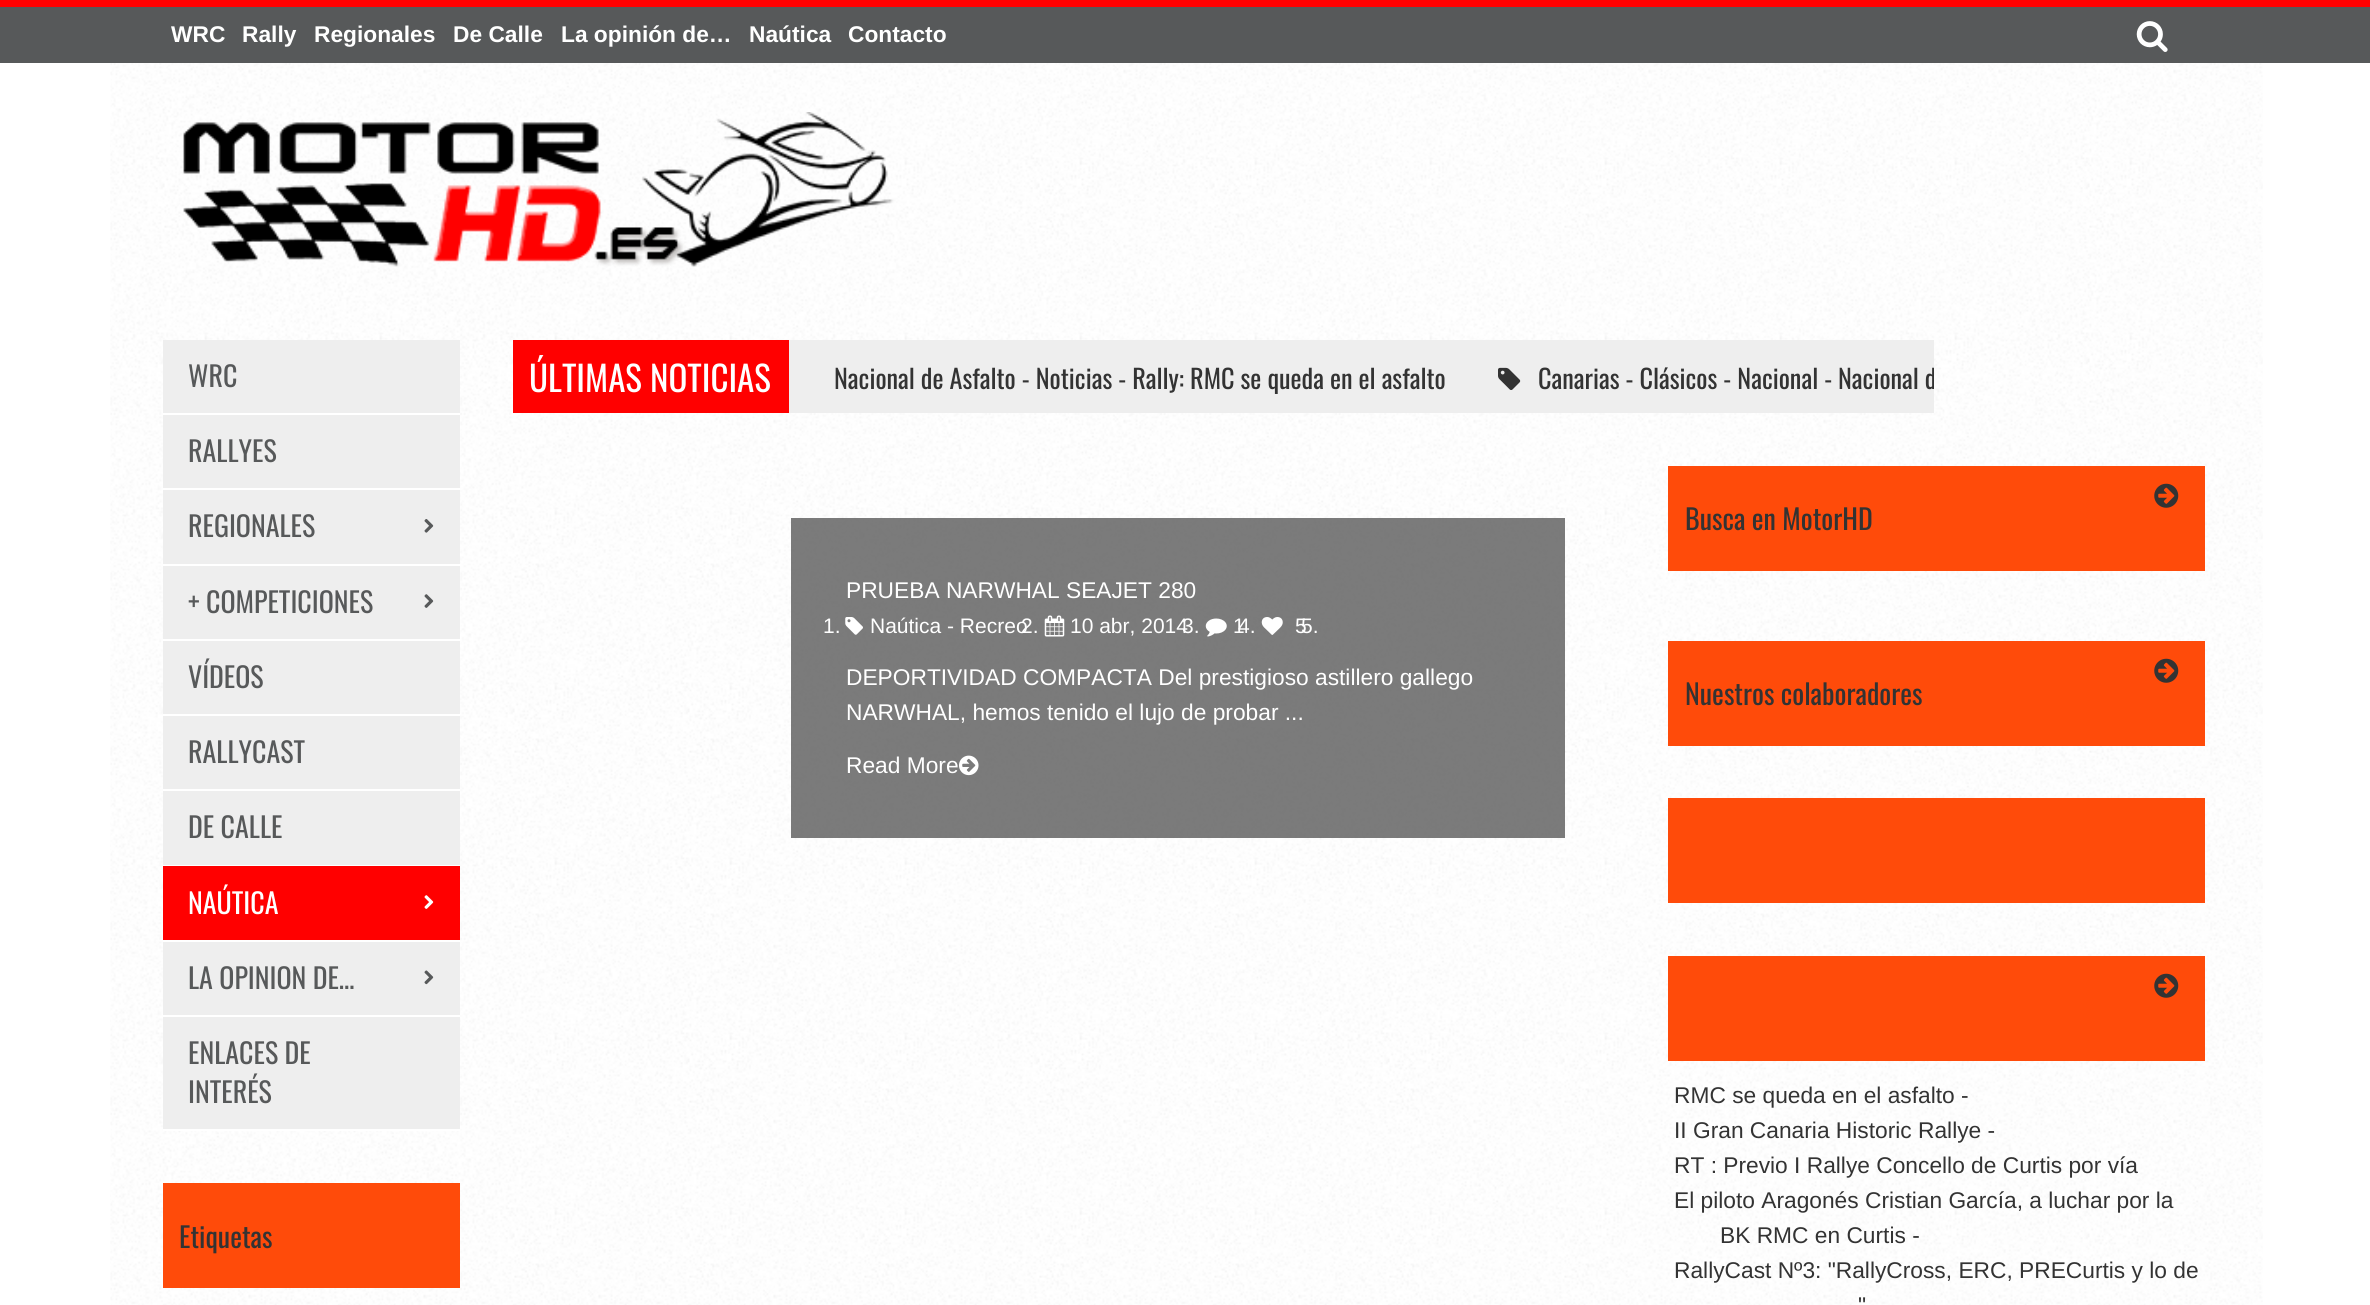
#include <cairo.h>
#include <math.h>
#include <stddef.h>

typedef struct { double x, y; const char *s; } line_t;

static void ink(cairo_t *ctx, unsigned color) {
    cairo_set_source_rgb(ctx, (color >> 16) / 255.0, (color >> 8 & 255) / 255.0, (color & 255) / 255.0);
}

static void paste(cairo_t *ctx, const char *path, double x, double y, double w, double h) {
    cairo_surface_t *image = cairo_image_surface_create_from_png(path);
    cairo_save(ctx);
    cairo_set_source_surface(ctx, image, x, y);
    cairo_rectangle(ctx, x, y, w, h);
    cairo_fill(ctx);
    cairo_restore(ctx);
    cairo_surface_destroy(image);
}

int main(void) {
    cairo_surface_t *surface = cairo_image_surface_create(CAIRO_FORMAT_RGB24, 2370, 1305);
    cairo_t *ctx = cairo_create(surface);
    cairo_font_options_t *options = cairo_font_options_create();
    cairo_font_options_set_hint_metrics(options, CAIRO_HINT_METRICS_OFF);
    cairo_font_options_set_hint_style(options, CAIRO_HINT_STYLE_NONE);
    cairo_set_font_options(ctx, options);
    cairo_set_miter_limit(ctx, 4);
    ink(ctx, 0xFFFFFF);
    cairo_paint(ctx);
    ink(ctx, 0x57595A);
    cairo_rectangle(ctx, 0, 7, 2370, 56);
    cairo_fill(ctx);
    ink(ctx, 0xFF0000);
    cairo_rectangle(ctx, 0, 0, 2370, 7);
    cairo_fill(ctx);
    cairo_select_font_face(ctx, "Liberation Sans", CAIRO_FONT_SLANT_NORMAL, CAIRO_FONT_WEIGHT_BOLD);
    cairo_set_font_size(ctx, 22.75);
    ink(ctx, 0xFFFFFF);
    {
        static const line_t items[] = {
            {171, 42, "WRC"},
            {242, 42, "Rally"},
            {314, 42, "Regionales"},
            {453, 42, "De Calle"},
            {561, 42, "La opinión de…"},
            {749, 42, "Naútica"},
            {848, 42, "Contacto"},
        };
        for (size_t i = 0; i < sizeof items / sizeof *items; i++) {
            cairo_move_to(ctx, items[i].x, items[i].y);
            cairo_show_text(ctx, items[i].s);
        }
    }
    paste(ctx, "media/1.png", 2136, 21, 32, 31);
    paste(ctx, "media/2.png", 110, 63, 2153, 1242);
    paste(ctx, "media/3.png", 183, 112, 710, 155);
    ink(ctx, 0xEEEEEE);
    cairo_rectangle(ctx, 163, 340, 297, 789);
    cairo_fill(ctx);
    ink(ctx, 0xFFFFFF);
    cairo_rectangle(ctx, 163, 413, 297, 2);
    cairo_fill(ctx);
    cairo_select_font_face(ctx, "Oswald", CAIRO_FONT_SLANT_NORMAL, CAIRO_FONT_WEIGHT_NORMAL);
    cairo_set_font_size(ctx, 28);
    ink(ctx, 0x57595A);
    cairo_move_to(ctx, 188, 387);
    cairo_show_text(ctx, "WRC");
    ink(ctx, 0xFFFFFF);
    cairo_rectangle(ctx, 163, 488, 297, 2);
    cairo_fill(ctx);
    ink(ctx, 0x57595A);
    cairo_move_to(ctx, 188, 462);
    cairo_show_text(ctx, "RALLYES");
    ink(ctx, 0xFFFFFF);
    cairo_rectangle(ctx, 163, 564, 297, 2);
    cairo_fill(ctx);
    ink(ctx, 0x57595A);
    cairo_move_to(ctx, 188, 537);
    cairo_show_text(ctx, "REGIONALES");
    paste(ctx, "media/4.png", 424, 519, 10, 14);
    ink(ctx, 0xFFFFFF);
    cairo_rectangle(ctx, 163, 639, 297, 2);
    cairo_fill(ctx);
    ink(ctx, 0x57595A);
    cairo_move_to(ctx, 188, 613);
    cairo_show_text(ctx, "+ COMPETICIONES");
    paste(ctx, "media/5.png", 424, 594, 10, 14);
    ink(ctx, 0xFFFFFF);
    cairo_rectangle(ctx, 163, 714, 297, 2);
    cairo_fill(ctx);
    ink(ctx, 0x57595A);
    cairo_move_to(ctx, 188, 688);
    cairo_show_text(ctx, "VÍDEOS");
    ink(ctx, 0xFFFFFF);
    cairo_rectangle(ctx, 163, 789, 297, 2);
    cairo_fill(ctx);
    ink(ctx, 0x57595A);
    cairo_move_to(ctx, 188, 763);
    cairo_show_text(ctx, "RALLYCAST");
    ink(ctx, 0xFFFFFF);
    cairo_rectangle(ctx, 163, 865, 297, 1);
    cairo_fill(ctx);
    ink(ctx, 0x57595A);
    cairo_move_to(ctx, 188, 838);
    cairo_show_text(ctx, "DE CALLE");
    ink(ctx, 0xFF0000);
    cairo_rectangle(ctx, 163, 866, 297, 74);
    cairo_fill(ctx);
    ink(ctx, 0xFFFFFF);
    cairo_rectangle(ctx, 163, 940, 297, 2);
    cairo_fill(ctx);
    cairo_move_to(ctx, 188, 914);
    cairo_show_text(ctx, "NAÚTICA");
    paste(ctx, "media/6.png", 424, 895, 10, 14);
    cairo_rectangle(ctx, 163, 1015, 297, 2);
    cairo_fill(ctx);
    ink(ctx, 0x57595A);
    cairo_move_to(ctx, 188, 989);
    cairo_show_text(ctx, "LA OPINION DE…");
    paste(ctx, "media/7.png", 424, 970, 10, 15);
    ink(ctx, 0xFFFFFF);
    cairo_rectangle(ctx, 163, 1129, 297, 2);
    cairo_fill(ctx);
    ink(ctx, 0x57595A);
    cairo_move_to(ctx, 188, 1064);
    cairo_show_text(ctx, "ENLACES DE");
    cairo_move_to(ctx, 188, 1103);
    cairo_show_text(ctx, "INTERÉS");
    ink(ctx, 0xFF4B0A);
    cairo_rectangle(ctx, 163, 1183, 297, 105);
    cairo_fill(ctx);
    ink(ctx, 0x333333);
    cairo_move_to(ctx, 179, 1248);
    cairo_show_text(ctx, "Etiquetas");
    ink(ctx, 0xEEEEEE);
    cairo_rectangle(ctx, 789, 340, 1145, 73);
    cairo_fill(ctx);
    ink(ctx, 0xFF0000);
    cairo_rectangle(ctx, 513, 340, 276, 73);
    cairo_fill(ctx);
    cairo_set_font_size(ctx, 35);
    ink(ctx, 0xFFFFFF);
    cairo_move_to(ctx, 529, 392);
    cairo_show_text(ctx, "ÚLTIMAS NOTICIAS");
    cairo_set_font_size(ctx, 26.25);
    ink(ctx, 0x333333);
    cairo_move_to(ctx, 834, 389);
    cairo_show_text(ctx, "Nacional de Asfalto - Noticias - Rally: RMC se queda en el asfalto");
    paste(ctx, "media/8.png", 1498, 367, 23, 23);
    cairo_move_to(ctx, 1538, 389);
    cairo_show_text(ctx, "Canarias - Clásicos - Nacional -");
    cairo_save(ctx);
    cairo_rectangle(ctx, 824, 340, 1110, 73);
    cairo_clip(ctx);
    cairo_move_to(ctx, 1838, 389);
    cairo_show_text(ctx, "Nacional d");
    cairo_restore(ctx);
    cairo_set_source_rgba(ctx, 0.353, 0.353, 0.353, 0.8);
    cairo_rectangle(ctx, 791, 518, 774, 320);
    cairo_fill(ctx);
    cairo_select_font_face(ctx, "Liberation Sans", CAIRO_FONT_SLANT_NORMAL, CAIRO_FONT_WEIGHT_NORMAL);
    cairo_set_font_size(ctx, 22.75);
    ink(ctx, 0xFFFFFF);
    cairo_move_to(ctx, 846, 598);
    cairo_show_text(ctx, "PRUEBA NARWHAL SEAJET 280");
    cairo_set_font_size(ctx, 21);
    cairo_move_to(ctx, 823, 633);
    cairo_show_text(ctx, "1.");
    paste(ctx, "media/9.png", 845, 617, 18, 18);
    cairo_move_to(ctx, 870, 633);
    cairo_show_text(ctx, "Naútica - Recreo");
    cairo_move_to(ctx, 1021, 633);
    cairo_show_text(ctx, "2.");
    paste(ctx, "media/10.png", 1044, 615, 21, 22);
    cairo_move_to(ctx, 1070, 633);
    cairo_show_text(ctx, "10 abr, 2014");
    cairo_move_to(ctx, 1182, 633);
    cairo_show_text(ctx, "3.");
    paste(ctx, "media/11.png", 1205, 618, 22, 19);
    cairo_move_to(ctx, 1233, 633);
    cairo_show_text(ctx, "1");
    cairo_move_to(ctx, 1238, 633);
    cairo_show_text(ctx, "4.");
    paste(ctx, "media/12.png", 1261, 617, 22, 18);
    cairo_move_to(ctx, 1295, 633);
    cairo_show_text(ctx, "5");
    cairo_move_to(ctx, 1301, 633);
    cairo_show_text(ctx, "5.");
    cairo_set_font_size(ctx, 22.75);
    {
        static const line_t items[] = {
            {846, 685, "DEPORTIVIDAD COMPACTA Del prestigioso astillero gallego"},
            {846, 720, "NARWHAL, hemos tenido el lujo de probar ..."},
            {846, 773, "Read More"},
        };
        for (size_t i = 0; i < sizeof items / sizeof *items; i++) {
            cairo_move_to(ctx, items[i].x, items[i].y);
            cairo_show_text(ctx, items[i].s);
        }
    }
    paste(ctx, "media/13.png", 959, 755, 20, 21);
    ink(ctx, 0xFF4B0A);
    cairo_rectangle(ctx, 1668, 466, 537, 105);
    cairo_fill(ctx);
    paste(ctx, "media/14.png", 2154, 483, 25, 25);
    cairo_select_font_face(ctx, "Oswald", CAIRO_FONT_SLANT_NORMAL, CAIRO_FONT_WEIGHT_NORMAL);
    cairo_set_font_size(ctx, 28);
    ink(ctx, 0x333333);
    cairo_move_to(ctx, 1685, 530);
    cairo_show_text(ctx, "Busca en MotorHD");
    ink(ctx, 0xFF4B0A);
    cairo_rectangle(ctx, 1668, 641, 537, 105);
    cairo_fill(ctx);
    paste(ctx, "media/14.png", 2154, 658, 25, 25);
    ink(ctx, 0x333333);
    cairo_move_to(ctx, 1685, 705);
    cairo_show_text(ctx, "Nuestros colaboradores");
    ink(ctx, 0xFF4B0A);
    cairo_rectangle(ctx, 1668, 798, 537, 105);
    cairo_fill(ctx);
    cairo_rectangle(ctx, 1668, 956, 537, 105);
    cairo_fill(ctx);
    paste(ctx, "media/14.png", 2154, 973, 25, 25);
    cairo_select_font_face(ctx, "Liberation Sans", CAIRO_FONT_SLANT_NORMAL, CAIRO_FONT_WEIGHT_NORMAL);
    cairo_set_font_size(ctx, 22.75);
    ink(ctx, 0x333333);
    {
        static const line_t items[] = {
            {1674, 1103, "RMC se queda en el asfalto -"},
            {1674, 1138, "II Gran Canaria Historic Rallye -"},
            {1674, 1173, "RT : Previo I Rallye Concello de Curtis por vía"},
            {1674, 1208, "El piloto Aragonés Cristian García, a luchar por la"},
            {1720, 1243, "BK RMC en Curtis -"},
            {1674, 1278, "RallyCast Nº3: \"RallyCross, ERC, PRECurtis y lo de"},
            {1858, 1313, "\""},
        };
        for (size_t i = 0; i < sizeof items / sizeof *items; i++) {
            cairo_move_to(ctx, items[i].x, items[i].y);
            cairo_show_text(ctx, items[i].s);
        }
    }
    cairo_surface_write_to_png(surface, "image.png");
    cairo_font_options_destroy(options);
    cairo_destroy(ctx);
    cairo_surface_destroy(surface);
    return 0;
}
